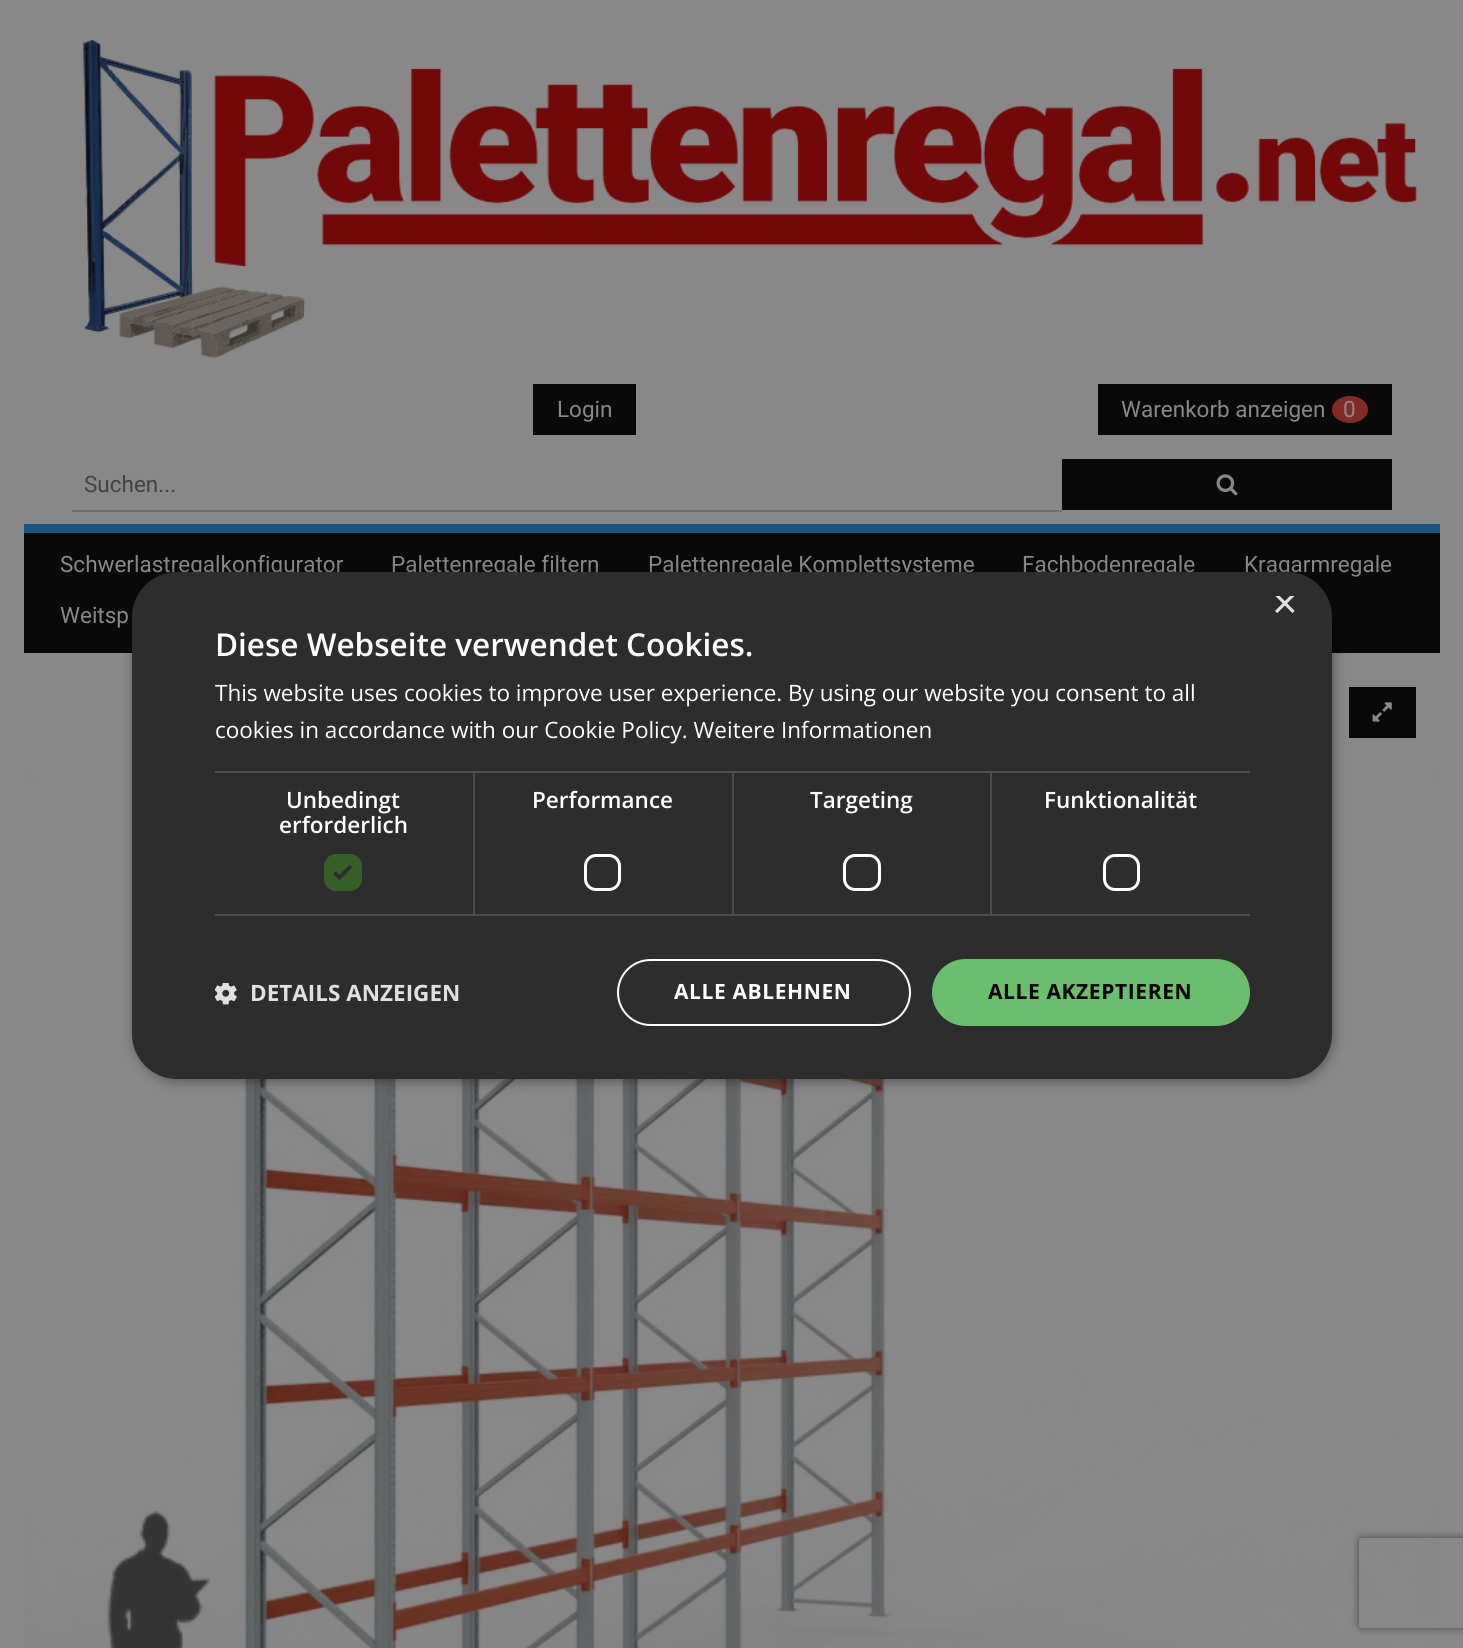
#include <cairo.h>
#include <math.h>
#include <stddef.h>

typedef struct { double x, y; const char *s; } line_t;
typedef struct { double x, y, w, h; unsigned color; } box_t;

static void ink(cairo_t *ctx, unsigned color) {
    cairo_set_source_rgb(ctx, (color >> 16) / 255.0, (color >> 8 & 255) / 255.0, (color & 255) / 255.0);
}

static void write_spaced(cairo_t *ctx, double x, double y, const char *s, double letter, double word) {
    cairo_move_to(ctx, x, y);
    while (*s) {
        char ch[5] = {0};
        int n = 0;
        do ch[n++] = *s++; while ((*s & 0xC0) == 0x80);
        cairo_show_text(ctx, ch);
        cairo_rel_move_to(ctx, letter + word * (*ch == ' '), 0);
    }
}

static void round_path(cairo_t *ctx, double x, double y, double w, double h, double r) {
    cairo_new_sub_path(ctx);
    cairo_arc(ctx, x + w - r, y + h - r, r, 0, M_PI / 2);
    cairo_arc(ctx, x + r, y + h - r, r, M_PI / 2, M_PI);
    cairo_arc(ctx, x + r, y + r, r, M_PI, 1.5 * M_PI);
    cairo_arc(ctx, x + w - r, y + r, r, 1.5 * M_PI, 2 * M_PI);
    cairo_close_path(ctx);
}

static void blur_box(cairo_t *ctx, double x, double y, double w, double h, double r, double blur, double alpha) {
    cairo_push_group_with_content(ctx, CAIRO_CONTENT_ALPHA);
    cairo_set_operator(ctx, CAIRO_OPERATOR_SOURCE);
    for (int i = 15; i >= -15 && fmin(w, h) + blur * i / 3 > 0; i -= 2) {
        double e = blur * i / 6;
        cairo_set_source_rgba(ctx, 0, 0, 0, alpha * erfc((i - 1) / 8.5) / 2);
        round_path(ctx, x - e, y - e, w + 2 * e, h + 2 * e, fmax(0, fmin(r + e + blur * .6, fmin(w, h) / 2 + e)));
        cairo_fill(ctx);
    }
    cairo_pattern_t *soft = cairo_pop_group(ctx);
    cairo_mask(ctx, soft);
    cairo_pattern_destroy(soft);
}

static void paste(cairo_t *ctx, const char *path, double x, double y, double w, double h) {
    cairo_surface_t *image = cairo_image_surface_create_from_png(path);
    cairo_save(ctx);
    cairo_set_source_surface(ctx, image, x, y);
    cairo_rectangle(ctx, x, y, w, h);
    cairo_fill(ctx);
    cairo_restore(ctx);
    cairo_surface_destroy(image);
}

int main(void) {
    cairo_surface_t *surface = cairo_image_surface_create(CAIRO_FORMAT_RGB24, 1463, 1648);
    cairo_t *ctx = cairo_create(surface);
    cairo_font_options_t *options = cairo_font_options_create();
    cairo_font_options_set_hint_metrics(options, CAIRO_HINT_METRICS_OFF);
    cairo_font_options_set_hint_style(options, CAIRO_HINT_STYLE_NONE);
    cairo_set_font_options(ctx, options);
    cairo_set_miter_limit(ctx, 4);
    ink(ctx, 0x888888);
    cairo_paint(ctx);
    paste(ctx, "media/1.png", 83, 40, 1334, 318);
    ink(ctx, 0x090909);
    cairo_rectangle(ctx, 533, 384, 103, 51);
    cairo_fill(ctx);
    cairo_select_font_face(ctx, "Roboto", CAIRO_FONT_SLANT_NORMAL, CAIRO_FONT_WEIGHT_NORMAL);
    cairo_set_font_size(ctx, 22.5);
    ink(ctx, 0x888888);
    cairo_move_to(ctx, 557, 417);
    cairo_show_text(ctx, "Login");
    ink(ctx, 0x090909);
    cairo_rectangle(ctx, 1098, 384, 294, 51);
    cairo_fill(ctx);
    ink(ctx, 0x888888);
    cairo_move_to(ctx, 1121, 417);
    cairo_show_text(ctx, "Warenkorb anzeigen");
    ink(ctx, 0x832A24);
    cairo_new_path(ctx);
    cairo_move_to(ctx, 1350, 396);
    cairo_curve_to(ctx, 1360, 396, 1368, 402, 1368, 409.5);
    cairo_curve_to(ctx, 1368, 417, 1360, 423, 1350, 423);
    cairo_curve_to(ctx, 1340, 423, 1332, 417, 1332, 409.5);
    cairo_curve_to(ctx, 1332, 402, 1340, 396, 1350, 396);
    cairo_close_path(ctx);
    cairo_fill(ctx);
    ink(ctx, 0x888888);
    cairo_move_to(ctx, 1343, 417);
    cairo_show_text(ctx, "0");
    ink(ctx, 0x6F6F6F);
    cairo_rectangle(ctx, 72, 510, 990, 2);
    cairo_fill(ctx);
    ink(ctx, 0x434343);
    cairo_move_to(ctx, 84, 492);
    cairo_show_text(ctx, "Suchen...");
    ink(ctx, 0x090909);
    cairo_rectangle(ctx, 1062, 459, 330, 51);
    cairo_fill(ctx);
    paste(ctx, "media/2.png", 1216, 474, 22, 22);
    cairo_rectangle(ctx, 24, 533, 1416, 120);
    cairo_fill(ctx);
    ink(ctx, 0x195482);
    cairo_rectangle(ctx, 24, 524, 1416, 9);
    cairo_fill(ctx);
    ink(ctx, 0x888888);
    {
        static const line_t items[] = {
            {60, 572, "Schwerlastregalkonfigurator"},
            {391, 572, "Palettenregale filtern"},
            {648, 572, "Palettenregale Komplettsysteme"},
            {1022, 572, "Fachbodenregale"},
            {1244, 572, "Kragarmregale"},
            {60, 623, "Weitsp"},
        };
        for (size_t i = 0; i < sizeof items / sizeof *items; i++) {
            cairo_move_to(ctx, items[i].x, items[i].y);
            cairo_show_text(ctx, items[i].s);
        }
    }
    ink(ctx, 0x090909);
    cairo_rectangle(ctx, 1349, 687, 67, 51);
    cairo_fill(ctx);
    paste(ctx, "media/3.png", 1372, 702, 20, 20);
    paste(ctx, "media/4.png", 24, 773, 1416, 875);
    paste(ctx, "media/5.png", 107, 1510, 104, 138);
    ink(ctx, 0x000000);
    blur_box(ctx, 134, 575, 1200, 507, 45, 6, 0.35);
    ink(ctx, 0x2D2D2D);
    round_path(ctx, 132, 572, 1200, 507, 45);
    cairo_fill(ctx);
    cairo_save(ctx);
    cairo_rectangle(ctx, 1272, 596, 23, 22);
    cairo_clip(ctx);
    cairo_select_font_face(ctx, "Liberation Sans", CAIRO_FONT_SLANT_NORMAL, CAIRO_FONT_WEIGHT_NORMAL);
    cairo_set_font_size(ctx, 44);
    ink(ctx, 0xE0E0E0);
    cairo_move_to(ctx, 1272, 618);
    cairo_show_text(ctx, "×");
    cairo_restore(ctx);
    cairo_select_font_face(ctx, "Open Sans SemiBold", CAIRO_FONT_SLANT_NORMAL, CAIRO_FONT_WEIGHT_NORMAL);
    cairo_set_font_size(ctx, 31.5);
    ink(ctx, 0xFFFFFF);
    cairo_move_to(ctx, 215, 656);
    cairo_show_text(ctx, "Diese Webseite verwendet Cookies.");
    cairo_select_font_face(ctx, "Open Sans", CAIRO_FONT_SLANT_NORMAL, CAIRO_FONT_WEIGHT_NORMAL);
    cairo_set_font_size(ctx, 22.5);
    cairo_move_to(ctx, 215, 701);
    cairo_show_text(ctx, "This website uses cookies to improve user experience. By using our website you consent to all");
    cairo_move_to(ctx, 215, 738);
    cairo_show_text(ctx, "cookies in accordance with our Cookie Policy. Weitere Informationen");
    {
        static const box_t items[] = {
            {215, 771, 259, 2, 0x4D4D4D},
            {473, 771, 2, 144, 0x4D4D4D},
            {215, 914, 259, 2, 0x4D4D4D},
        };
        for (size_t i = 0; i < sizeof items / sizeof *items; i++) {
            ink(ctx, items[i].color);
            cairo_rectangle(ctx, items[i].x, items[i].y, items[i].w, items[i].h);
            cairo_fill(ctx);
        }
    }
    cairo_select_font_face(ctx, "Open Sans SemiBold", CAIRO_FONT_SLANT_NORMAL, CAIRO_FONT_WEIGHT_NORMAL);
    ink(ctx, 0xFFFFFF);
    cairo_move_to(ctx, 286, 808);
    cairo_show_text(ctx, "Unbedingt");
    cairo_move_to(ctx, 279, 833);
    cairo_show_text(ctx, "erforderlich");
    ink(ctx, 0x355F25);
    round_path(ctx, 324, 854, 38, 37, 12);
    cairo_fill(ctx);
    cairo_new_path(ctx);
    cairo_move_to(ctx, 334.5, 872.5);
    cairo_line_to(ctx, 339.5, 877.5);
    cairo_line_to(ctx, 351, 866);
    ink(ctx, 0x2D2D2D);
    cairo_set_line_width(ctx, 3.9);
    cairo_stroke(ctx);
    {
        static const box_t items[] = {
            {474, 771, 776, 2, 0x4D4D4D},
            {732, 771, 2, 144, 0x4D4D4D},
            {474, 914, 260, 2, 0x4D4D4D},
        };
        for (size_t i = 0; i < sizeof items / sizeof *items; i++) {
            ink(ctx, items[i].color);
            cairo_rectangle(ctx, items[i].x, items[i].y, items[i].w, items[i].h);
            cairo_fill(ctx);
        }
    }
    ink(ctx, 0xFFFFFF);
    cairo_move_to(ctx, 532, 808);
    cairo_show_text(ctx, "Performance");
    round_path(ctx, 585.5, 855.5, 34, 34, 10.5);
    cairo_set_line_width(ctx, 3);
    cairo_stroke(ctx);
    ink(ctx, 0x4D4D4D);
    cairo_rectangle(ctx, 990, 771, 2, 144);
    cairo_fill(ctx);
    cairo_rectangle(ctx, 734, 914, 516, 2);
    cairo_fill(ctx);
    ink(ctx, 0xFFFFFF);
    cairo_move_to(ctx, 810, 808);
    cairo_show_text(ctx, "Targeting");
    round_path(ctx, 844.5, 855.5, 35, 34, 10.5);
    cairo_stroke(ctx);
    cairo_move_to(ctx, 1044, 808);
    cairo_show_text(ctx, "Funktionalität");
    round_path(ctx, 1104.5, 855.5, 34, 34, 10.5);
    cairo_stroke(ctx);
    paste(ctx, "media/6.png", 215, 983, 22, 22);
    cairo_select_font_face(ctx, "Open Sans", CAIRO_FONT_SLANT_NORMAL, CAIRO_FONT_WEIGHT_BOLD);
    ink(ctx, 0xE0E0E0);
    cairo_move_to(ctx, 250, 1001);
    cairo_show_text(ctx, "DETAILS ANZEIGEN");
    round_path(ctx, 618, 960, 292, 65, 32.5);
    ink(ctx, 0xFFFFFF);
    cairo_set_line_width(ctx, 2);
    cairo_stroke(ctx);
    cairo_set_font_size(ctx, 21);
    write_spaced(ctx, 674, 999, "ALLE ABLEHNEN", 0.6, 0);
    ink(ctx, 0x6BBE6B);
    round_path(ctx, 932, 959, 318, 67, 33.5);
    cairo_fill(ctx);
    ink(ctx, 0x000000);
    write_spaced(ctx, 988, 999, "ALLE AKZEPTIEREN", 0.6, 0);
    cairo_save(ctx);
    cairo_set_fill_rule(ctx, CAIRO_FILL_RULE_EVEN_ODD);
    cairo_new_path(ctx);
    cairo_move_to(ctx, 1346, 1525);
    cairo_line_to(ctx, 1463, 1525);
    cairo_line_to(ctx, 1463, 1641);
    cairo_line_to(ctx, 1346, 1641);
    cairo_close_path(ctx);
    cairo_move_to(ctx, 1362, 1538);
    cairo_line_to(ctx, 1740, 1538);
    cairo_curve_to(ctx, 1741.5, 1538, 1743, 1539.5, 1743, 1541);
    cairo_line_to(ctx, 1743, 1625);
    cairo_curve_to(ctx, 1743, 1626.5, 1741.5, 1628, 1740, 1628);
    cairo_line_to(ctx, 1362, 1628);
    cairo_curve_to(ctx, 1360.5, 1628, 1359, 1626.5, 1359, 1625);
    cairo_line_to(ctx, 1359, 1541);
    cairo_curve_to(ctx, 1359, 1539.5, 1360.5, 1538, 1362, 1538);
    cairo_close_path(ctx);
    cairo_clip(ctx);
    ink(ctx, 0x494949);
    blur_box(ctx, 1359, 1538, 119, 90, 3, 4, 1);
    cairo_restore(ctx);
    cairo_surface_write_to_png(surface, "image.png");
    cairo_font_options_destroy(options);
    cairo_destroy(ctx);
    cairo_surface_destroy(surface);
    return 0;
}
